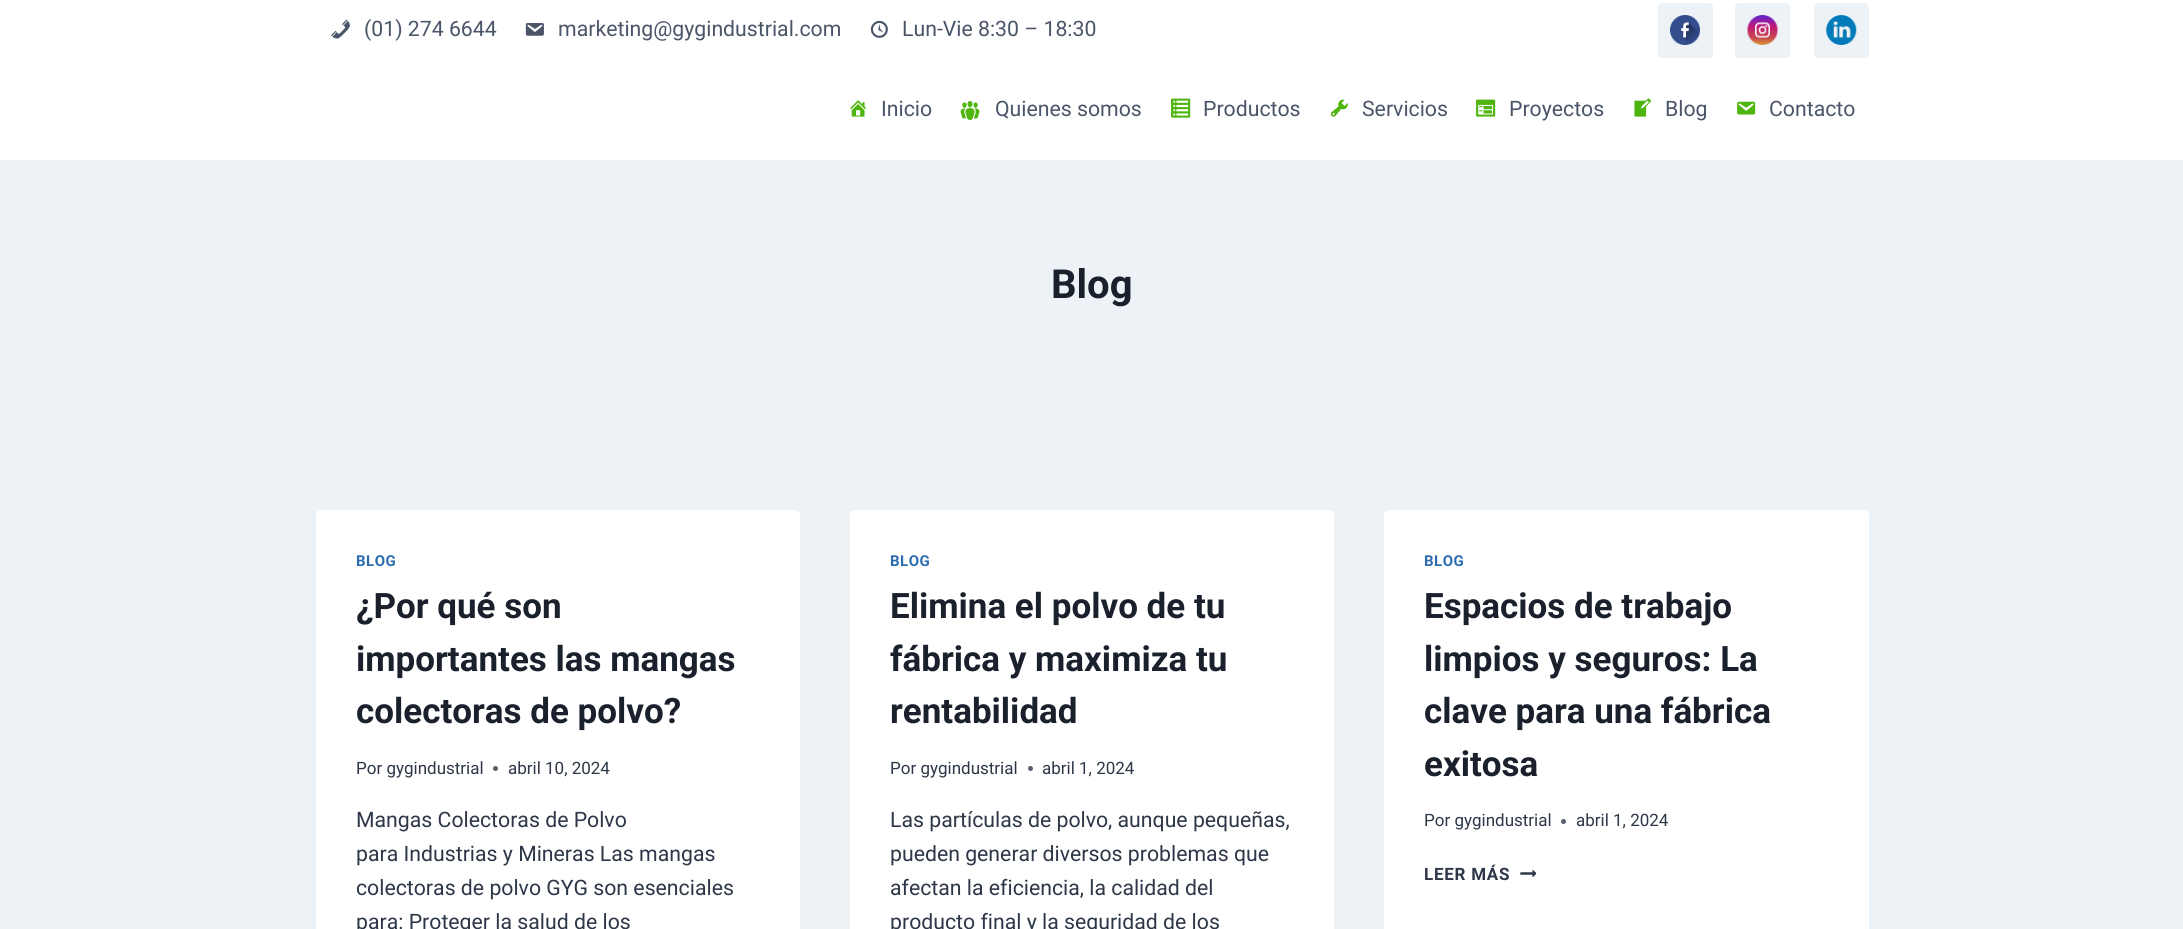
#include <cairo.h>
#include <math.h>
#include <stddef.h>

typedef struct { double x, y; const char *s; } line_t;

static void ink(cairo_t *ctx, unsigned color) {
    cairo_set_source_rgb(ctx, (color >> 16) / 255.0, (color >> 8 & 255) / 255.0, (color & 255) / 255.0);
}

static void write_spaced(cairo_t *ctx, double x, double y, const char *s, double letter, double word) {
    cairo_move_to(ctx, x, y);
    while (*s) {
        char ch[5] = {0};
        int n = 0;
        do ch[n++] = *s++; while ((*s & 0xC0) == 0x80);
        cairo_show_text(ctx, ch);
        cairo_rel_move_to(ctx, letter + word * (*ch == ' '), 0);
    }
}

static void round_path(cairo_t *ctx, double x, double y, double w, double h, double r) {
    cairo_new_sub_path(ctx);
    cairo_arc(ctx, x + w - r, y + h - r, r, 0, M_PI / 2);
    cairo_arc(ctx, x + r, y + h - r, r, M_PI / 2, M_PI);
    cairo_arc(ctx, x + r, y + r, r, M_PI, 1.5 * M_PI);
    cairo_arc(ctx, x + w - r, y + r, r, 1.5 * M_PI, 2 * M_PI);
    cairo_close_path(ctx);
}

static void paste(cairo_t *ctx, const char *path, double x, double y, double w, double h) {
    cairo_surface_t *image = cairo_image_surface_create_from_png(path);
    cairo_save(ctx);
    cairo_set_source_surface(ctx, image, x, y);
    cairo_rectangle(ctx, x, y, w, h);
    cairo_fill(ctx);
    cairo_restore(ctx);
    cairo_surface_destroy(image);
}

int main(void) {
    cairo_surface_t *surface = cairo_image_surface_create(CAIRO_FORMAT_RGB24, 2183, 929);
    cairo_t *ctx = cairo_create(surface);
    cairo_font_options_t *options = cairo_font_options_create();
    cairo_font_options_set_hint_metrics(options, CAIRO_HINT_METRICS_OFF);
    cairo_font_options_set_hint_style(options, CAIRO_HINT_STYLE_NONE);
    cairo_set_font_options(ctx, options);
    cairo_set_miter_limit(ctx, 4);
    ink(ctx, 0xEDF2F7);
    cairo_paint(ctx);
    ink(ctx, 0xFFFFFF);
    cairo_rectangle(ctx, 0, 0, 2183, 160);
    cairo_fill(ctx);
    paste(ctx, "media/1.png", 331, 19, 19, 20);
    cairo_select_font_face(ctx, "Roboto", CAIRO_FONT_SLANT_NORMAL, CAIRO_FONT_WEIGHT_NORMAL);
    cairo_set_font_size(ctx, 21.25);
    ink(ctx, 0x4A5568);
    cairo_move_to(ctx, 364, 36);
    cairo_show_text(ctx, "(01) 274 6644");
    paste(ctx, "media/2.png", 525, 23, 19, 13);
    cairo_move_to(ctx, 558, 36);
    cairo_show_text(ctx, "marketing@gygindustrial.com");
    paste(ctx, "media/3.png", 870, 20, 18, 18);
    cairo_move_to(ctx, 902, 36);
    cairo_show_text(ctx, "Lun-Vie 8:30 – 18:30");
    ink(ctx, 0xEDF2F7);
    round_path(ctx, 1658, 3, 55, 55, 4);
    cairo_fill(ctx);
    paste(ctx, "media/4.png", 1670, 15, 30, 30);
    round_path(ctx, 1735, 3, 55, 55, 4);
    cairo_fill(ctx);
    paste(ctx, "media/5.png", 1747, 15, 31, 30);
    round_path(ctx, 1814, 3, 55, 55, 4);
    cairo_fill(ctx);
    paste(ctx, "media/6.png", 1826, 15, 31, 30);
    paste(ctx, "media/7.png", 850, 100, 16, 17);
    ink(ctx, 0x4A5568);
    cairo_move_to(ctx, 881, 116);
    cairo_show_text(ctx, "Inicio");
    paste(ctx, "media/8.png", 960, 101, 20, 19);
    cairo_move_to(ctx, 995, 116);
    cairo_show_text(ctx, "Quienes somos");
    paste(ctx, "media/9.png", 1171, 98, 20, 20);
    cairo_move_to(ctx, 1203, 116);
    cairo_show_text(ctx, "Productos");
    paste(ctx, "media/10.png", 1330, 99, 18, 18);
    cairo_move_to(ctx, 1362, 116);
    cairo_show_text(ctx, "Servicios");
    paste(ctx, "media/11.png", 1476, 99, 20, 18);
    cairo_move_to(ctx, 1509, 116);
    cairo_show_text(ctx, "Proyectos");
    paste(ctx, "media/12.png", 1634, 98, 17, 19);
    cairo_move_to(ctx, 1665, 116);
    cairo_show_text(ctx, "Blog");
    paste(ctx, "media/13.png", 1737, 101, 19, 14);
    cairo_move_to(ctx, 1769, 116);
    cairo_show_text(ctx, "Contacto");
    cairo_select_font_face(ctx, "Roboto", CAIRO_FONT_SLANT_NORMAL, CAIRO_FONT_WEIGHT_BOLD);
    cairo_set_font_size(ctx, 40);
    ink(ctx, 0x1A202C);
    cairo_move_to(ctx, 1051, 298);
    cairo_show_text(ctx, "Blog");
    ink(ctx, 0xFFFFFF);
    round_path(ctx, 316, 510, 484, 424, 5);
    cairo_fill(ctx);
    cairo_set_font_size(ctx, 15);
    ink(ctx, 0x2B6CB0);
    write_spaced(ctx, 356, 566, "BLOG", 0.5, 0);
    cairo_set_font_size(ctx, 35);
    ink(ctx, 0x1A202C);
    {
        static const line_t items[] = {
            {356, 618, "¿Por qué son"},
            {356, 671, "importantes las mangas"},
            {356, 723, "colectoras de polvo?"},
        };
        for (size_t i = 0; i < sizeof items / sizeof *items; i++) {
            cairo_move_to(ctx, items[i].x, items[i].y);
            cairo_show_text(ctx, items[i].s);
        }
    }
    cairo_select_font_face(ctx, "Roboto", CAIRO_FONT_SLANT_NORMAL, CAIRO_FONT_WEIGHT_NORMAL);
    cairo_set_font_size(ctx, 17);
    ink(ctx, 0x2D3748);
    cairo_move_to(ctx, 356, 774);
    cairo_show_text(ctx, "Por gygindustrial");
    ink(ctx, 0x575F6D);
    cairo_new_path(ctx);
    cairo_arc(ctx, 495.5, 768.5, 2.5, 0, 2 * M_PI);
    cairo_fill(ctx);
    ink(ctx, 0x2D3748);
    cairo_move_to(ctx, 508, 774);
    cairo_show_text(ctx, "abril 10, 2024");
    cairo_set_font_size(ctx, 21.25);
    {
        static const line_t items[] = {
            {356, 827, "Mangas Colectoras de Polvo"},
            {356, 861, "para Industrias y Mineras Las mangas"},
            {356, 895, "colectoras de polvo GYG son esenciales"},
            {356, 929, "para: Proteger la salud de los"},
        };
        for (size_t i = 0; i < sizeof items / sizeof *items; i++) {
            cairo_move_to(ctx, items[i].x, items[i].y);
            cairo_show_text(ctx, items[i].s);
        }
    }
    ink(ctx, 0xFFFFFF);
    round_path(ctx, 850, 510, 484, 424, 5);
    cairo_fill(ctx);
    cairo_select_font_face(ctx, "Roboto", CAIRO_FONT_SLANT_NORMAL, CAIRO_FONT_WEIGHT_BOLD);
    cairo_set_font_size(ctx, 15);
    ink(ctx, 0x2B6CB0);
    write_spaced(ctx, 890, 566, "BLOG", 0.5, 0);
    cairo_set_font_size(ctx, 35);
    ink(ctx, 0x1A202C);
    {
        static const line_t items[] = {
            {890, 618, "Elimina el polvo de tu"},
            {890, 671, "fábrica y maximiza tu"},
            {890, 723, "rentabilidad"},
        };
        for (size_t i = 0; i < sizeof items / sizeof *items; i++) {
            cairo_move_to(ctx, items[i].x, items[i].y);
            cairo_show_text(ctx, items[i].s);
        }
    }
    cairo_select_font_face(ctx, "Roboto", CAIRO_FONT_SLANT_NORMAL, CAIRO_FONT_WEIGHT_NORMAL);
    cairo_set_font_size(ctx, 17);
    ink(ctx, 0x2D3748);
    cairo_move_to(ctx, 890, 774);
    cairo_show_text(ctx, "Por gygindustrial");
    ink(ctx, 0x575F6D);
    cairo_new_path(ctx);
    cairo_arc(ctx, 1030.5, 768.5, 2.5, 0, 2 * M_PI);
    cairo_fill(ctx);
    ink(ctx, 0x2D3748);
    cairo_move_to(ctx, 1042, 774);
    cairo_show_text(ctx, "abril 1, 2024");
    cairo_set_font_size(ctx, 21.25);
    {
        static const line_t items[] = {
            {890, 827, "Las partículas de polvo, aunque pequeñas,"},
            {890, 861, "pueden generar diversos problemas que"},
            {890, 895, "afectan la eficiencia, la calidad del"},
            {890, 929, "producto final y la seguridad de los"},
        };
        for (size_t i = 0; i < sizeof items / sizeof *items; i++) {
            cairo_move_to(ctx, items[i].x, items[i].y);
            cairo_show_text(ctx, items[i].s);
        }
    }
    ink(ctx, 0xFFFFFF);
    round_path(ctx, 1384, 510, 485, 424, 5);
    cairo_fill(ctx);
    cairo_select_font_face(ctx, "Roboto", CAIRO_FONT_SLANT_NORMAL, CAIRO_FONT_WEIGHT_BOLD);
    cairo_set_font_size(ctx, 15);
    ink(ctx, 0x2B6CB0);
    write_spaced(ctx, 1424, 566, "BLOG", 0.5, 0);
    cairo_set_font_size(ctx, 35);
    ink(ctx, 0x1A202C);
    {
        static const line_t items[] = {
            {1424, 618, "Espacios de trabajo"},
            {1424, 671, "limpios y seguros: La"},
            {1424, 723, "clave para una fábrica"},
            {1424, 776, "exitosa"},
        };
        for (size_t i = 0; i < sizeof items / sizeof *items; i++) {
            cairo_move_to(ctx, items[i].x, items[i].y);
            cairo_show_text(ctx, items[i].s);
        }
    }
    cairo_select_font_face(ctx, "Roboto", CAIRO_FONT_SLANT_NORMAL, CAIRO_FONT_WEIGHT_NORMAL);
    cairo_set_font_size(ctx, 17);
    ink(ctx, 0x2D3748);
    cairo_move_to(ctx, 1424, 826);
    cairo_show_text(ctx, "Por gygindustrial");
    ink(ctx, 0x575F6D);
    cairo_new_path(ctx);
    cairo_arc(ctx, 1563.5, 821.5, 2.5, 0, 2 * M_PI);
    cairo_fill(ctx);
    ink(ctx, 0x2D3748);
    cairo_move_to(ctx, 1576, 826);
    cairo_show_text(ctx, "abril 1, 2024");
    cairo_select_font_face(ctx, "Roboto", CAIRO_FONT_SLANT_NORMAL, CAIRO_FONT_WEIGHT_BOLD);
    write_spaced(ctx, 1424, 880, "LEER MÁS", 0.75, 0);
    paste(ctx, "media/14.png", 1520, 869, 16, 9);
    cairo_surface_write_to_png(surface, "image.png");
    cairo_font_options_destroy(options);
    cairo_destroy(ctx);
    cairo_surface_destroy(surface);
    return 0;
}
